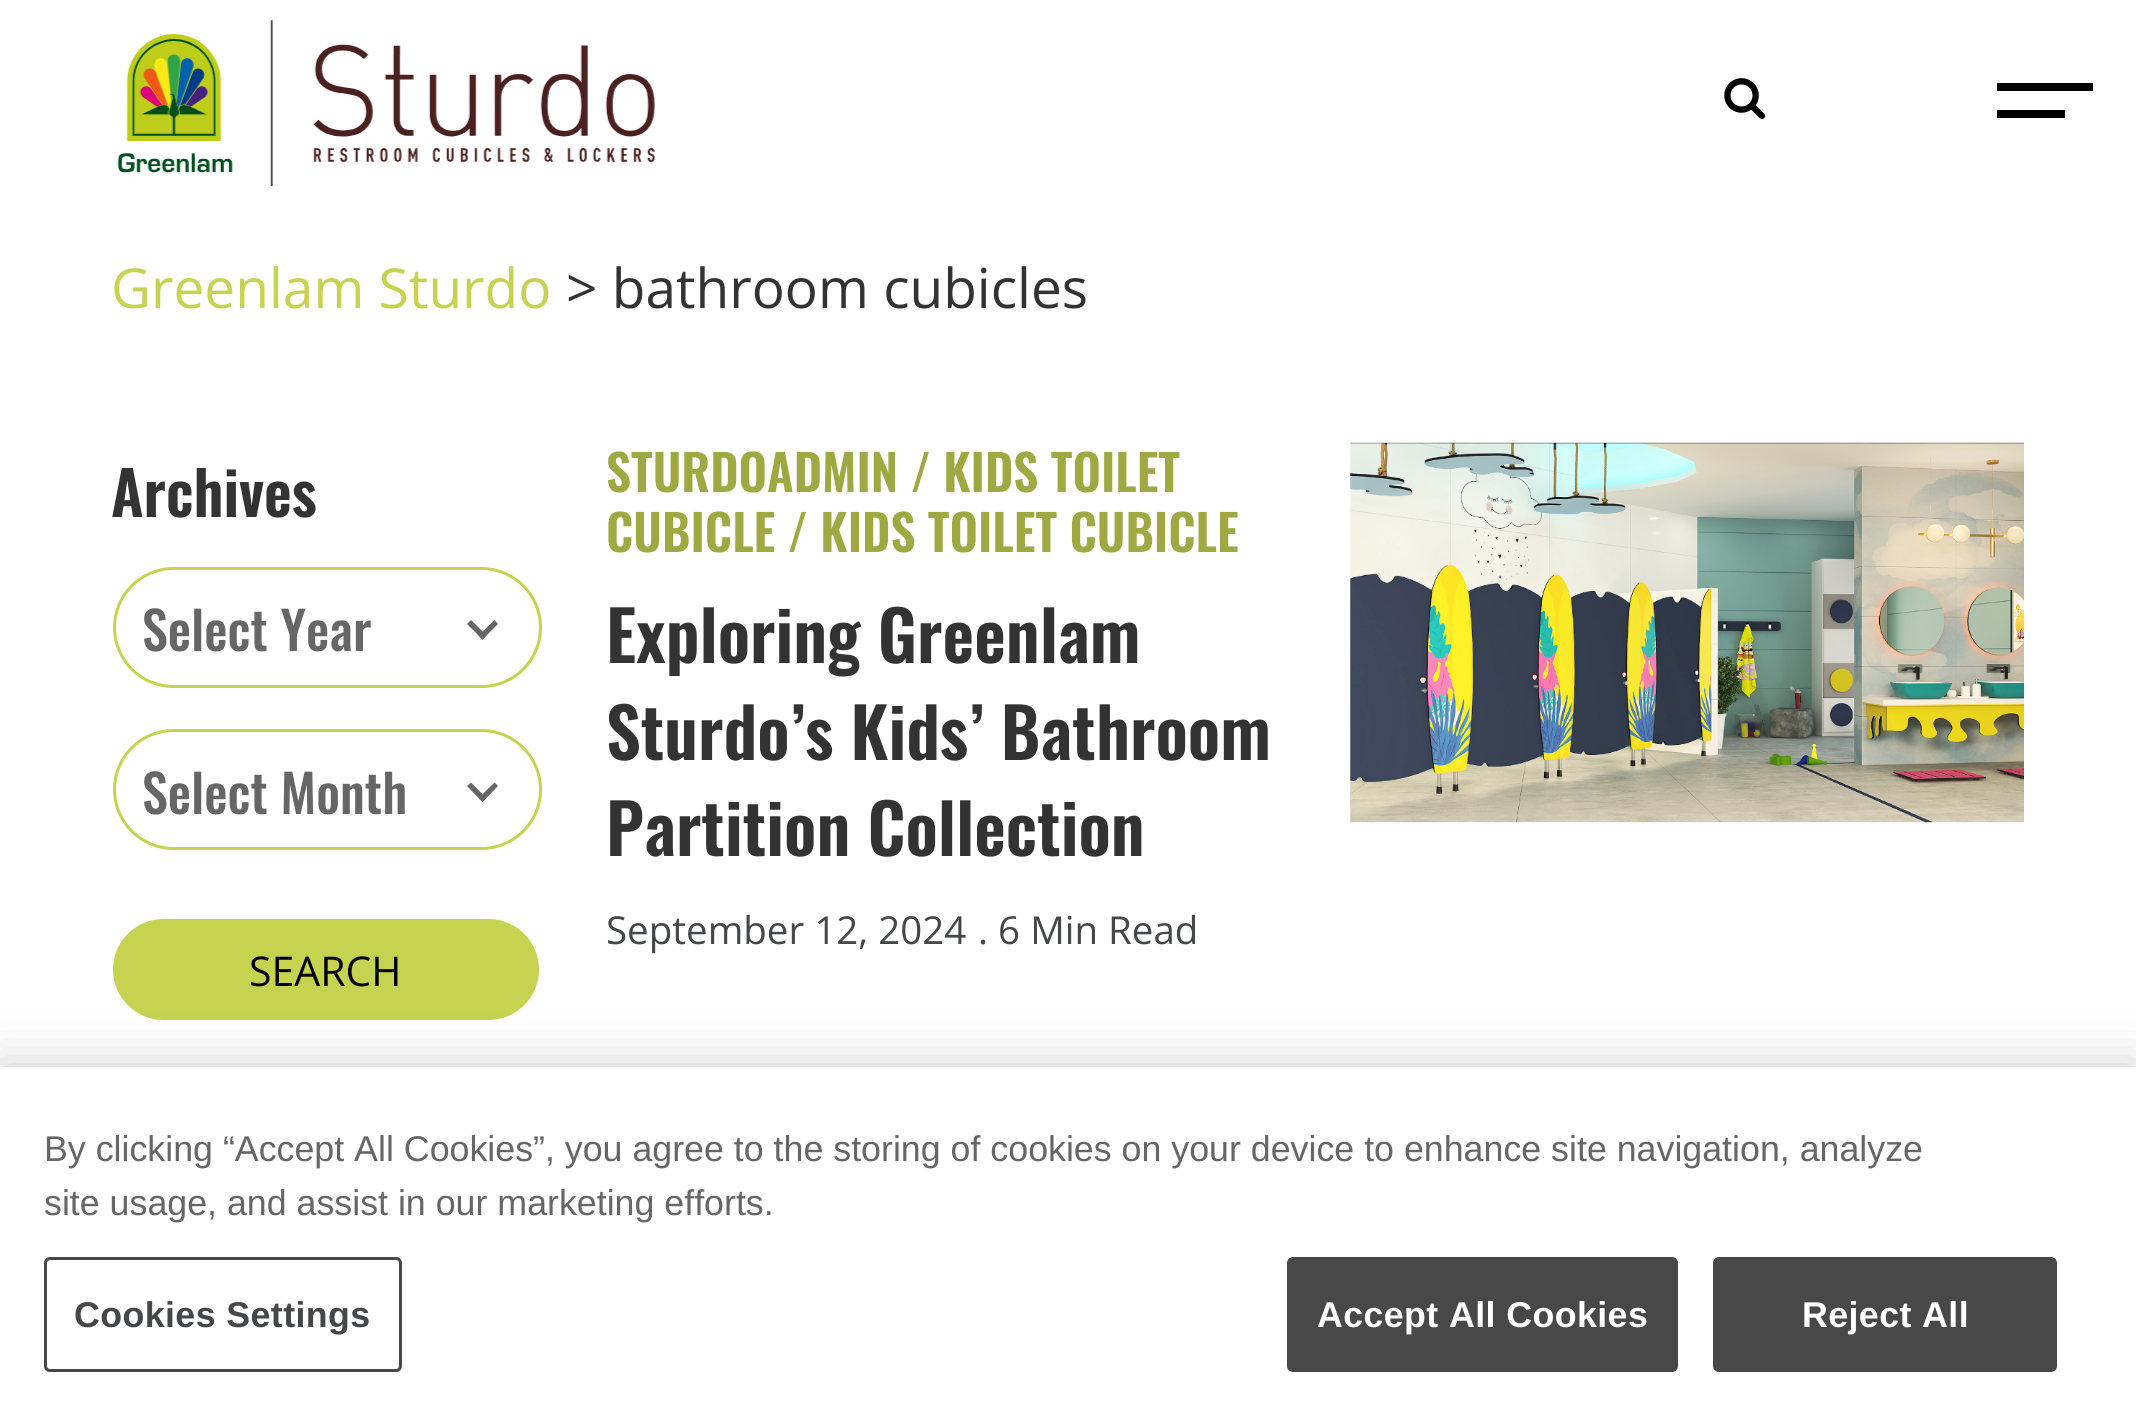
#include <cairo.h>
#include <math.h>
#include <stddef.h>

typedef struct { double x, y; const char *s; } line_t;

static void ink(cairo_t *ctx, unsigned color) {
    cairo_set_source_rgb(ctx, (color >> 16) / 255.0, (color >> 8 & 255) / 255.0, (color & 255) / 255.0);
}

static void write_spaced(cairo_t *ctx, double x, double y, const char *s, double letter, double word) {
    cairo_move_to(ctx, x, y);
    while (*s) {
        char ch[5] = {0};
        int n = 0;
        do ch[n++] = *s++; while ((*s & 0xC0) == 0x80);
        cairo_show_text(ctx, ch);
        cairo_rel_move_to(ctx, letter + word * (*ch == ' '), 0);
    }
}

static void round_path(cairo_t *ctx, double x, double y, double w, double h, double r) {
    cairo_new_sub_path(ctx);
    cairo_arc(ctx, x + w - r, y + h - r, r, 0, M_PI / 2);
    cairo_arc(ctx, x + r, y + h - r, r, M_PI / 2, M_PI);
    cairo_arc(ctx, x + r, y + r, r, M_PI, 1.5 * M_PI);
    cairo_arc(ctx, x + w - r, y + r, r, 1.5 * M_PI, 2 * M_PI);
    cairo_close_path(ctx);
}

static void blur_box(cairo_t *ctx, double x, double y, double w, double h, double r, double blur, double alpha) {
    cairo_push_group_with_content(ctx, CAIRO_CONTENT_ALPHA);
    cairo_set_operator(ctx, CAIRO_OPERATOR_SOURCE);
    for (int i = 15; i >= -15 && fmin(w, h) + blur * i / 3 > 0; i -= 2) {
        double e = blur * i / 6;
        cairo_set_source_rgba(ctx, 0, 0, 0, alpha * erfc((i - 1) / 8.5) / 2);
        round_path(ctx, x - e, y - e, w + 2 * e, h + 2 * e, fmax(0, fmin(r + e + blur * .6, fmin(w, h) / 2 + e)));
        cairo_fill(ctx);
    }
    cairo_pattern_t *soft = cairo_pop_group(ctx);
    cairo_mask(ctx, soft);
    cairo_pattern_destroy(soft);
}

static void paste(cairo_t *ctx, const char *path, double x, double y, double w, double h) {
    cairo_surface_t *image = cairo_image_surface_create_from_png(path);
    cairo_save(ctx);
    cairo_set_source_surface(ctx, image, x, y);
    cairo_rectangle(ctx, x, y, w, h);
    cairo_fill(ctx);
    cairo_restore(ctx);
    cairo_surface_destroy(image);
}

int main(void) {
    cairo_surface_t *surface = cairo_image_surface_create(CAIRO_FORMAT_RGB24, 2136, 1426);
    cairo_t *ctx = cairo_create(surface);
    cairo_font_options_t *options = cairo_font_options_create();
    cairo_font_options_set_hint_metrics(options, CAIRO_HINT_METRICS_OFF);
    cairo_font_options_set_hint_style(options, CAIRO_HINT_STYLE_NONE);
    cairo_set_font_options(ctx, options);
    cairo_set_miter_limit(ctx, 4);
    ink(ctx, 0xFFFFFF);
    cairo_paint(ctx);
    paste(ctx, "media/1.png", 117, 20, 538, 167);
    paste(ctx, "media/2.png", 1724, 78, 42, 41);
    ink(ctx, 0x000000);
    cairo_rectangle(ctx, 1997, 83, 96, 8);
    cairo_fill(ctx);
    cairo_rectangle(ctx, 1997, 110, 68, 8);
    cairo_fill(ctx);
    cairo_select_font_face(ctx, "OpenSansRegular", CAIRO_FONT_SLANT_NORMAL, CAIRO_FONT_WEIGHT_NORMAL);
    cairo_set_font_size(ctx, 55);
    ink(ctx, 0xC5D351);
    cairo_move_to(ctx, 111, 308);
    cairo_show_text(ctx, "Greenlam Sturdo");
    ink(ctx, 0x333333);
    cairo_move_to(ctx, 566, 308);
    cairo_show_text(ctx, "> bathroom cubicles");
    cairo_select_font_face(ctx, "Oswald SemiBold", CAIRO_FONT_SLANT_NORMAL, CAIRO_FONT_WEIGHT_NORMAL);
    cairo_set_font_size(ctx, 60.5);
    cairo_move_to(ctx, 111, 517);
    cairo_show_text(ctx, "Archives");
    round_path(ctx, 114.5, 568.5, 426, 118, 59);
    ink(ctx, 0xC5D351);
    cairo_set_line_width(ctx, 3);
    cairo_stroke(ctx);
    cairo_select_font_face(ctx, "Oswald Medium", CAIRO_FONT_SLANT_NORMAL, CAIRO_FONT_WEIGHT_NORMAL);
    cairo_set_font_size(ctx, 52.25);
    ink(ctx, 0x666666);
    cairo_move_to(ctx, 142, 651);
    cairo_show_text(ctx, "Select Year");
    cairo_new_path(ctx);
    cairo_move_to(ctx, 494.5, 620);
    cairo_line_to(ctx, 498, 624);
    cairo_line_to(ctx, 482.5, 639.5);
    cairo_line_to(ctx, 478.5, 635.5);
    cairo_close_path(ctx);
    cairo_fill(ctx);
    cairo_new_path(ctx);
    cairo_move_to(ctx, 471, 620);
    cairo_line_to(ctx, 486.5, 635.5);
    cairo_line_to(ctx, 482.5, 639.5);
    cairo_line_to(ctx, 467, 624);
    cairo_close_path(ctx);
    cairo_fill(ctx);
    round_path(ctx, 114.5, 730.5, 426, 118, 59);
    ink(ctx, 0xC5D351);
    cairo_stroke(ctx);
    ink(ctx, 0x666666);
    cairo_move_to(ctx, 142, 814);
    cairo_show_text(ctx, "Select Month");
    cairo_new_path(ctx);
    cairo_move_to(ctx, 494.5, 782.5);
    cairo_line_to(ctx, 498, 786);
    cairo_line_to(ctx, 482.5, 802);
    cairo_line_to(ctx, 478.5, 798);
    cairo_close_path(ctx);
    cairo_fill(ctx);
    cairo_new_path(ctx);
    cairo_move_to(ctx, 471, 782.5);
    cairo_line_to(ctx, 486.5, 798);
    cairo_line_to(ctx, 482.5, 802);
    cairo_line_to(ctx, 467, 786);
    cairo_close_path(ctx);
    cairo_fill(ctx);
    ink(ctx, 0xC5D351);
    round_path(ctx, 113, 919, 426, 101, 50.5);
    cairo_fill(ctx);
    cairo_select_font_face(ctx, "OpenSansRegular", CAIRO_FONT_SLANT_NORMAL, CAIRO_FONT_WEIGHT_NORMAL);
    cairo_set_font_size(ctx, 41);
    ink(ctx, 0x000000);
    cairo_move_to(ctx, 249, 986);
    cairo_show_text(ctx, "SEARCH");
    cairo_select_font_face(ctx, "Oswald SemiBold", CAIRO_FONT_SLANT_NORMAL, CAIRO_FONT_WEIGHT_NORMAL);
    cairo_set_font_size(ctx, 49.5);
    ink(ctx, 0x9EA941);
    cairo_move_to(ctx, 606, 492);
    cairo_show_text(ctx, "STURDOADMIN / KIDS TOILET");
    cairo_move_to(ctx, 606, 552);
    cairo_show_text(ctx, "CUBICLE / KIDS TOILET CUBICLE");
    cairo_set_font_size(ctx, 68.75);
    ink(ctx, 0x333333);
    {
        static const line_t items[] = {
            {606, 663, "Exploring Greenlam"},
            {606, 760, "Sturdo’s Kids’ Bathroom"},
            {606, 856, "Partition Collection"},
        };
        for (size_t i = 0; i < sizeof items / sizeof *items; i++) {
            cairo_move_to(ctx, items[i].x, items[i].y);
            cairo_show_text(ctx, items[i].s);
        }
    }
    cairo_select_font_face(ctx, "OpenSansRegular", CAIRO_FONT_SLANT_NORMAL, CAIRO_FONT_WEIGHT_NORMAL);
    cairo_set_font_size(ctx, 38.5);
    ink(ctx, 0x464749);
    cairo_move_to(ctx, 606, 944);
    cairo_show_text(ctx, "September 12, 2024");
    cairo_move_to(ctx, 978, 944);
    cairo_show_text(ctx, ". 6 Min Read");
    paste(ctx, "media/3.png", 1350, 442, 674, 381);
    ink(ctx, 0x000000);
    blur_box(ctx, 0, 1067, 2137, 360, 0, 25, 0.2);
    ink(ctx, 0xFFFFFF);
    cairo_rectangle(ctx, 0, 1067, 2136, 359);
    cairo_fill(ctx);
    cairo_select_font_face(ctx, "Liberation Sans", CAIRO_FONT_SLANT_NORMAL, CAIRO_FONT_WEIGHT_NORMAL);
    cairo_set_font_size(ctx, 35.77);
    ink(ctx, 0x666666);
    cairo_move_to(ctx, 44, 1161);
    cairo_show_text(ctx, "By clicking “Accept All Cookies”, you agree to the storing of cookies on your device to enhance site navigation, analyze");
    cairo_move_to(ctx, 44, 1215);
    cairo_show_text(ctx, "site usage, and assist in our marketing efforts.");
    round_path(ctx, 45.5, 1258.5, 355, 112, 4.5);
    ink(ctx, 0x484848);
    cairo_stroke(ctx);
    cairo_select_font_face(ctx, "Liberation Sans", CAIRO_FONT_SLANT_NORMAL, CAIRO_FONT_WEIGHT_BOLD);
    ink(ctx, 0x464749);
    write_spaced(ctx, 74, 1327, "Cookies Settings", 0.4, 0);
    ink(ctx, 0x484848);
    round_path(ctx, 1288.5, 1258.5, 388, 112, 4.5);
    cairo_fill_preserve(ctx);
    cairo_stroke(ctx);
    ink(ctx, 0xFFFFFF);
    write_spaced(ctx, 1317, 1327, "Accept All Cookies", 0.4, 0);
    ink(ctx, 0x484848);
    round_path(ctx, 1714.5, 1258.5, 341, 112, 4.5);
    cairo_fill_preserve(ctx);
    cairo_stroke(ctx);
    ink(ctx, 0xFFFFFF);
    write_spaced(ctx, 1802, 1327, "Reject All", 0.4, 0);
    cairo_surface_write_to_png(surface, "image.png");
    cairo_font_options_destroy(options);
    cairo_destroy(ctx);
    cairo_surface_destroy(surface);
    return 0;
}
